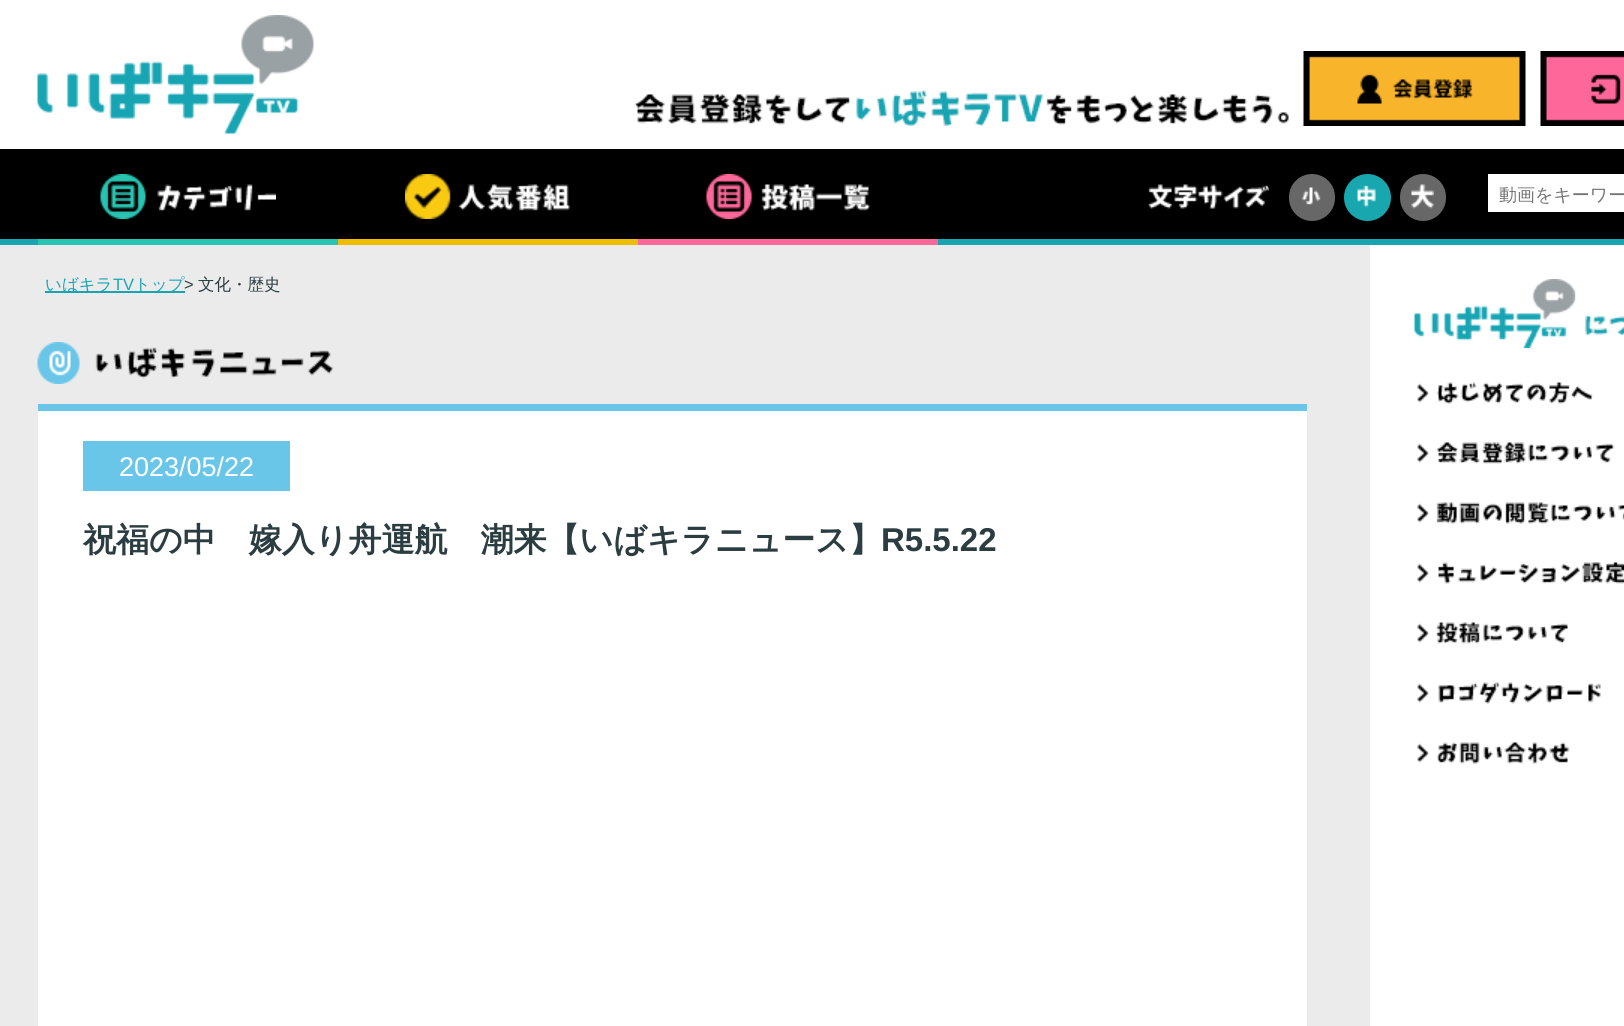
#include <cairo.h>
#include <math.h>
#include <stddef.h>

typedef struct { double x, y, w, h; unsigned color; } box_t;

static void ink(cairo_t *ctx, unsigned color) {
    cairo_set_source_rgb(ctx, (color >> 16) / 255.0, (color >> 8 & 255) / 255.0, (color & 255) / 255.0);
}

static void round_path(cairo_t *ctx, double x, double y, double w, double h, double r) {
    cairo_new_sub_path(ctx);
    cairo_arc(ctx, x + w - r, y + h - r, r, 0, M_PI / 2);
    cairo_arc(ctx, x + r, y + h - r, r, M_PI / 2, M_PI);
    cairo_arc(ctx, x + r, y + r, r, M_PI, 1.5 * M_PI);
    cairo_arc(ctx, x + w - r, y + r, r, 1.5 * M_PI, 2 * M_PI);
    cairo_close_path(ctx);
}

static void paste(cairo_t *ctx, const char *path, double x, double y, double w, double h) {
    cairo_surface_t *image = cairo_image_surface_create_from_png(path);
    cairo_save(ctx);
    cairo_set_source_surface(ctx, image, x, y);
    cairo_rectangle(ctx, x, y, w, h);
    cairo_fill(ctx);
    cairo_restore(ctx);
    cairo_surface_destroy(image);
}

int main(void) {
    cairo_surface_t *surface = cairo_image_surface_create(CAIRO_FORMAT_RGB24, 1624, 1026);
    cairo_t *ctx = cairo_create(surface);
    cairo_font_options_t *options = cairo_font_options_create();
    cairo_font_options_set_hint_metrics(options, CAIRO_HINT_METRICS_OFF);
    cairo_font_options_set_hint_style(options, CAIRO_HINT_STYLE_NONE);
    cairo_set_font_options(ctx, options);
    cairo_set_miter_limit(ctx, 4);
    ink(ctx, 0xEBEBEB);
    cairo_paint(ctx);
    ink(ctx, 0xFFFFFF);
    cairo_rectangle(ctx, 0, 0, 1624, 149);
    cairo_fill(ctx);
    paste(ctx, "media/1.png", 37, 15, 277, 119);
    paste(ctx, "media/2.png", 634, 90, 655, 36);
    paste(ctx, "media/3.png", 1303, 51, 223, 75);
    paste(ctx, "media/4.png", 1540, 51, 84, 75);
    {
        static const box_t items[] = {
            {0, 149, 1624, 90, 0x000000},
            {0, 239, 1624, 6, 0x17A5B1},
            {38, 239, 300, 6, 0x28C4B2},
        };
        for (size_t i = 0; i < sizeof items / sizeof *items; i++) {
            ink(ctx, items[i].color);
            cairo_rectangle(ctx, items[i].x, items[i].y, items[i].w, items[i].h);
            cairo_fill(ctx);
        }
    }
    paste(ctx, "media/5.png", 100, 174, 176, 45);
    ink(ctx, 0xEFBC04);
    cairo_rectangle(ctx, 338, 239, 300, 6);
    cairo_fill(ctx);
    paste(ctx, "media/6.png", 405, 174, 165, 45);
    ink(ctx, 0xFE6799);
    cairo_rectangle(ctx, 638, 239, 300, 6);
    cairo_fill(ctx);
    paste(ctx, "media/7.png", 706, 174, 164, 45);
    paste(ctx, "media/8.png", 1147, 184, 122, 25);
    ink(ctx, 0x676767);
    round_path(ctx, 1289, 174, 46, 47, 23);
    cairo_fill(ctx);
    paste(ctx, "media/9.png", 1301, 187, 20, 18);
    ink(ctx, 0x18A7AF);
    cairo_arc(ctx, 1367.5, 197.5, 23.5, 0, 2 * M_PI);
    cairo_fill(ctx);
    paste(ctx, "media/10.png", 1357, 185, 19, 23);
    ink(ctx, 0x676767);
    round_path(ctx, 1400, 174, 46, 47, 23);
    cairo_fill(ctx);
    paste(ctx, "media/11.png", 1411, 184, 23, 25);
    ink(ctx, 0xFFFFFF);
    cairo_rectangle(ctx, 1488, 174, 136, 38);
    cairo_fill(ctx);
    cairo_select_font_face(ctx, "WenQuanYi Zen Hei Medium", CAIRO_FONT_SLANT_NORMAL, CAIRO_FONT_WEIGHT_NORMAL);
    cairo_set_font_size(ctx, 18);
    ink(ctx, 0x757575);
    cairo_move_to(ctx, 1499, 201);
    cairo_show_text(ctx, "動画をキーワー");
    ink(ctx, 0x17A5B3);
    cairo_rectangle(ctx, 45, 291, 140, 2);
    cairo_fill(ctx);
    cairo_set_font_size(ctx, 16.5);
    cairo_move_to(ctx, 45, 290);
    cairo_show_text(ctx, "いばキラ");
    cairo_select_font_face(ctx, "Liberation Sans", CAIRO_FONT_SLANT_NORMAL, CAIRO_FONT_WEIGHT_NORMAL);
    cairo_move_to(ctx, 113, 290);
    cairo_show_text(ctx, "TV");
    cairo_select_font_face(ctx, "WenQuanYi Zen Hei Medium", CAIRO_FONT_SLANT_NORMAL, CAIRO_FONT_WEIGHT_NORMAL);
    cairo_move_to(ctx, 134, 290);
    cairo_show_text(ctx, "トップ");
    cairo_select_font_face(ctx, "Liberation Sans", CAIRO_FONT_SLANT_NORMAL, CAIRO_FONT_WEIGHT_NORMAL);
    ink(ctx, 0x2B3D41);
    cairo_move_to(ctx, 184, 290);
    cairo_show_text(ctx, ">");
    cairo_select_font_face(ctx, "WenQuanYi Zen Hei Medium", CAIRO_FONT_SLANT_NORMAL, CAIRO_FONT_WEIGHT_NORMAL);
    cairo_move_to(ctx, 198, 290);
    cairo_show_text(ctx, "文化・歴史");
    paste(ctx, "media/12.png", 37, 342, 297, 42);
    {
        static const box_t items[] = {
            {38, 411, 1269, 615, 0xFFFFFF},
            {38, 404, 1269, 7, 0x69C6E9},
            {83, 441, 207, 50, 0x69C6E9},
        };
        for (size_t i = 0; i < sizeof items / sizeof *items; i++) {
            ink(ctx, items[i].color);
            cairo_rectangle(ctx, items[i].x, items[i].y, items[i].w, items[i].h);
            cairo_fill(ctx);
        }
    }
    cairo_select_font_face(ctx, "Liberation Sans", CAIRO_FONT_SLANT_NORMAL, CAIRO_FONT_WEIGHT_NORMAL);
    cairo_set_font_size(ctx, 27);
    ink(ctx, 0xFFFFFF);
    cairo_move_to(ctx, 119, 476);
    cairo_show_text(ctx, "2023/05/22");
    cairo_select_font_face(ctx, "WenQuanYi Zen Hei", CAIRO_FONT_SLANT_NORMAL, CAIRO_FONT_WEIGHT_BOLD);
    cairo_set_font_size(ctx, 33);
    ink(ctx, 0x2B3D41);
    cairo_move_to(ctx, 83, 551);
    cairo_show_text(ctx, "祝福の中　嫁入り舟運航　潮来【いばキラニュース】");
    cairo_select_font_face(ctx, "Liberation Sans", CAIRO_FONT_SLANT_NORMAL, CAIRO_FONT_WEIGHT_BOLD);
    cairo_move_to(ctx, 881, 551);
    cairo_show_text(ctx, "R5.5.22");
    ink(ctx, 0xFFFFFF);
    cairo_rectangle(ctx, 1370, 245, 254, 781);
    cairo_fill(ctx);
    paste(ctx, "media/13.png", 1414, 279, 210, 69);
    paste(ctx, "media/14.png", 1417, 382, 176, 22);
    paste(ctx, "media/15.png", 1417, 442, 198, 22);
    paste(ctx, "media/16.png", 1417, 502, 207, 22);
    paste(ctx, "media/17.png", 1417, 562, 207, 22);
    paste(ctx, "media/18.png", 1417, 622, 151, 22);
    paste(ctx, "media/19.png", 1417, 682, 184, 22);
    paste(ctx, "media/20.png", 1417, 742, 153, 22);
    cairo_surface_write_to_png(surface, "image.png");
    cairo_font_options_destroy(options);
    cairo_destroy(ctx);
    cairo_surface_destroy(surface);
    return 0;
}
